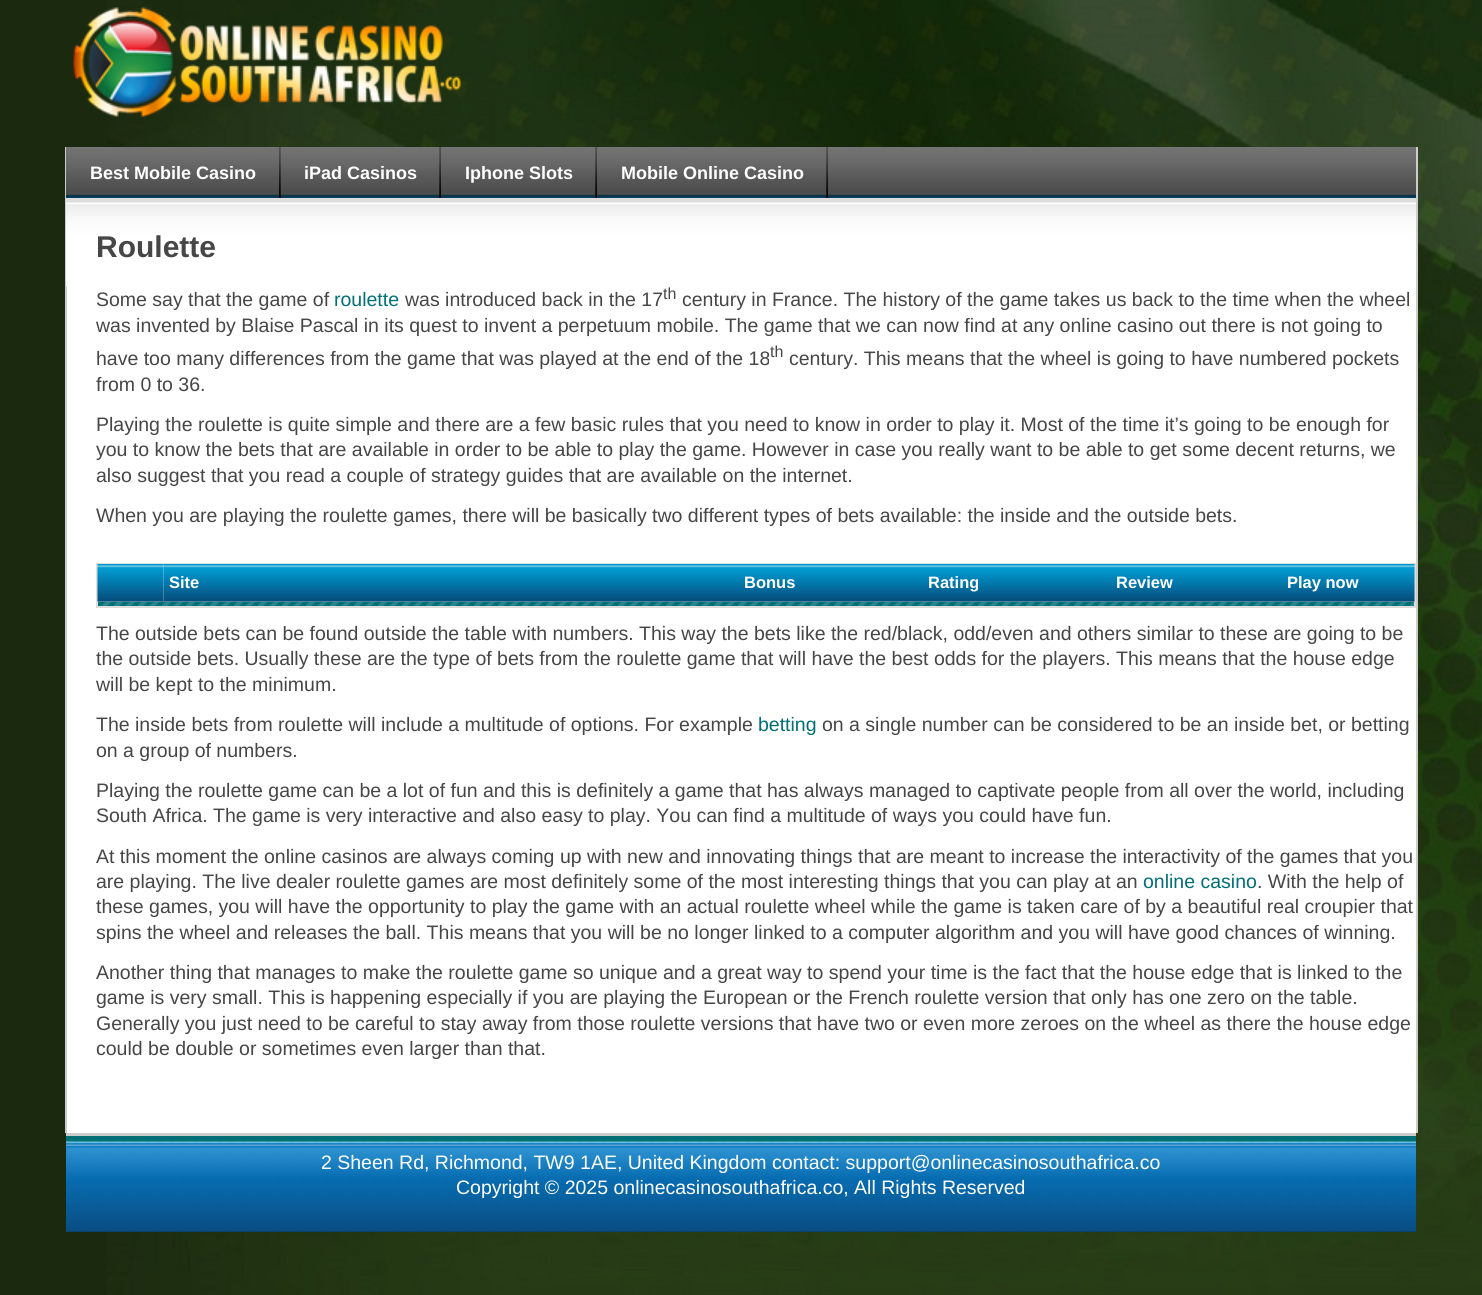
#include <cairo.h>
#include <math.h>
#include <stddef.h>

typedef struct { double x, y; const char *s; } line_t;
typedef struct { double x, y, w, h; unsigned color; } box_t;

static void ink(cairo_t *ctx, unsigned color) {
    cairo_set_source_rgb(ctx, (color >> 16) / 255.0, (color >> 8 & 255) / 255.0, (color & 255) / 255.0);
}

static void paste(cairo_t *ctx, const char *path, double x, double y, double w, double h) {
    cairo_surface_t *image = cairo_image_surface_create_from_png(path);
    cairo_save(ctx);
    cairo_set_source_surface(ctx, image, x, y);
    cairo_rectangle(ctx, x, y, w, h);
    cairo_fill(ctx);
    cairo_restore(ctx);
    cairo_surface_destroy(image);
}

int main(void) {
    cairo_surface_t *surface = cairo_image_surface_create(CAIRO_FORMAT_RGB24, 1482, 1295);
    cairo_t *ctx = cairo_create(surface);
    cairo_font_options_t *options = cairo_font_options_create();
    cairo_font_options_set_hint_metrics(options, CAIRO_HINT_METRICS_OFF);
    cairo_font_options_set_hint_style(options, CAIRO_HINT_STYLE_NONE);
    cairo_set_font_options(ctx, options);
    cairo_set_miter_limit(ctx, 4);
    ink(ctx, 0x1B290F);
    cairo_paint(ctx);
    paste(ctx, "media/1.png", 107, 0, 1375, 1295);
    paste(ctx, "media/2.png", 73, 7, 388, 110);
    {
        static const box_t items[] = {
            {67, 286, 1349, 847, 0xFFFFFF},
            {1416, 147, 2, 986, 0xCCCCCC},
            {65, 147, 2, 986, 0xCCCCCC},
            {66, 194, 1350, 4, 0x02405E},
        };
        for (size_t i = 0; i < sizeof items / sizeof *items; i++) {
            ink(ctx, items[i].color);
            cairo_rectangle(ctx, items[i].x, items[i].y, items[i].w, items[i].h);
            cairo_fill(ctx);
        }
    }
    paste(ctx, "media/3.png", 66, 147, 1350, 50);
    ink(ctx, 0xDDDDDD);
    cairo_rectangle(ctx, 66, 198, 1350, 5);
    cairo_fill(ctx);
    paste(ctx, "media/4.png", 279, 147, 2, 51);
    paste(ctx, "media/5.png", 280, 147, 1, 51);
    cairo_select_font_face(ctx, "Liberation Sans", CAIRO_FONT_SLANT_NORMAL, CAIRO_FONT_WEIGHT_BOLD);
    cairo_set_font_size(ctx, 18);
    ink(ctx, 0xFFFFFF);
    cairo_move_to(ctx, 90, 179);
    cairo_show_text(ctx, "Best Mobile Casino");
    paste(ctx, "media/6.png", 439, 147, 2, 51);
    paste(ctx, "media/5.png", 439, 147, 1, 51);
    cairo_move_to(ctx, 304, 179);
    cairo_show_text(ctx, "iPad Casinos");
    paste(ctx, "media/6.png", 595, 147, 2, 51);
    paste(ctx, "media/5.png", 595, 147, 1, 51);
    cairo_move_to(ctx, 465, 179);
    cairo_show_text(ctx, "Iphone Slots");
    paste(ctx, "media/6.png", 826, 147, 2, 51);
    paste(ctx, "media/5.png", 826, 147, 1, 51);
    cairo_move_to(ctx, 621, 179);
    cairo_show_text(ctx, "Mobile Online Casino");
    paste(ctx, "media/7.png", 66, 202, 1350, 85);
    cairo_set_font_size(ctx, 30);
    ink(ctx, 0x464646);
    cairo_move_to(ctx, 96, 257);
    cairo_show_text(ctx, "Roulette");
    cairo_select_font_face(ctx, "Liberation Sans", CAIRO_FONT_SLANT_NORMAL, CAIRO_FONT_WEIGHT_NORMAL);
    cairo_set_font_size(ctx, 19.5);
    cairo_move_to(ctx, 96, 306);
    cairo_show_text(ctx, "Some say that the game of");
    ink(ctx, 0x007075);
    cairo_move_to(ctx, 334, 306);
    cairo_show_text(ctx, "roulette");
    ink(ctx, 0x464646);
    cairo_move_to(ctx, 405, 306);
    cairo_show_text(ctx, "was introduced back in the 17");
    cairo_set_font_size(ctx, 16);
    cairo_move_to(ctx, 663, 299);
    cairo_show_text(ctx, "th");
    cairo_set_font_size(ctx, 19.5);
    {
        static const line_t items[] = {
            {682, 306, "century in France. The history of the game takes us back to the time when the wheel"},
            {96, 332, "was invented by Blaise Pascal in its quest to invent a perpetuum mobile. The game that we can now find at any online casino out there is not going to"},
            {96, 365, "have too many differences from the game that was played at the end of the 18"},
        };
        for (size_t i = 0; i < sizeof items / sizeof *items; i++) {
            cairo_move_to(ctx, items[i].x, items[i].y);
            cairo_show_text(ctx, items[i].s);
        }
    }
    cairo_set_font_size(ctx, 16);
    cairo_move_to(ctx, 770, 357);
    cairo_show_text(ctx, "th");
    cairo_set_font_size(ctx, 19.5);
    {
        static const line_t items[] = {
            {789, 365, "century. This means that the wheel is going to have numbered pockets"},
            {96, 391, "from 0 to 36."},
            {96, 431, "Playing the roulette is quite simple and there are a few basic rules that you need to know in order to play it. Most of the time it’s going to be enough for"},
            {96, 456, "you to know the bets that are available in order to be able to play the game. However in case you really want to be able to get some decent returns, we"},
            {96, 482, "also suggest that you read a couple of strategy guides that are available on the internet."},
            {96, 522, "When you are playing the roulette games, there will be basically two different types of bets available: the inside and the outside bets."},
        };
        for (size_t i = 0; i < sizeof items / sizeof *items; i++) {
            cairo_move_to(ctx, items[i].x, items[i].y);
            cairo_show_text(ctx, items[i].s);
        }
    }
    paste(ctx, "media/8.png", 98, 601, 1316, 5);
    cairo_rectangle(ctx, 97, 564, 1318, 43);
    ink(ctx, 0xDDDDDD);
    cairo_stroke(ctx);
    paste(ctx, "media/9.png", 97, 564, 67, 38);
    paste(ctx, "media/10.png", 163, 564, 527, 38);
    cairo_select_font_face(ctx, "Liberation Sans", CAIRO_FONT_SLANT_NORMAL, CAIRO_FONT_WEIGHT_BOLD);
    cairo_set_font_size(ctx, 16.5);
    ink(ctx, 0xFFFFFF);
    cairo_move_to(ctx, 169, 588);
    cairo_show_text(ctx, "Site");
    paste(ctx, "media/11.png", 690, 564, 159, 38);
    cairo_move_to(ctx, 744, 588);
    cairo_show_text(ctx, "Bonus");
    paste(ctx, "media/12.png", 849, 564, 210, 38);
    cairo_move_to(ctx, 928, 588);
    cairo_show_text(ctx, "Rating");
    paste(ctx, "media/13.png", 1059, 564, 171, 38);
    cairo_move_to(ctx, 1116, 588);
    cairo_show_text(ctx, "Review");
    paste(ctx, "media/14.png", 1230, 564, 185, 38);
    cairo_move_to(ctx, 1287, 588);
    cairo_show_text(ctx, "Play now");
    cairo_select_font_face(ctx, "Liberation Sans", CAIRO_FONT_SLANT_NORMAL, CAIRO_FONT_WEIGHT_NORMAL);
    cairo_set_font_size(ctx, 19.5);
    ink(ctx, 0x464646);
    {
        static const line_t items[] = {
            {96, 640, "The outside bets can be found outside the table with numbers. This way the bets like the red/black, odd/even and others similar to these are going to be"},
            {96, 665, "the outside bets. Usually these are the type of bets from the roulette game that will have the best odds for the players. This means that the house edge"},
            {96, 691, "will be kept to the minimum."},
            {96, 731, "The inside bets from roulette will include a multitude of options. For example"},
        };
        for (size_t i = 0; i < sizeof items / sizeof *items; i++) {
            cairo_move_to(ctx, items[i].x, items[i].y);
            cairo_show_text(ctx, items[i].s);
        }
    }
    ink(ctx, 0x007075);
    cairo_move_to(ctx, 758, 731);
    cairo_show_text(ctx, "betting");
    ink(ctx, 0x464646);
    {
        static const line_t items[] = {
            {822, 731, "on a single number can be considered to be an inside bet, or betting"},
            {96, 757, "on a group of numbers."},
            {96, 797, "Playing the roulette game can be a lot of fun and this is definitely a game that has always managed to captivate people from all over the world, including"},
            {96, 822, "South Africa. The game is very interactive and also easy to play. You can find a multitude of ways you could have fun."},
            {96, 863, "At this moment the online casinos are always coming up with new and innovating things that are meant to increase the interactivity of the games that you"},
            {96, 888, "are playing. The live dealer roulette games are most definitely some of the most interesting things that you can play at an"},
        };
        for (size_t i = 0; i < sizeof items / sizeof *items; i++) {
            cairo_move_to(ctx, items[i].x, items[i].y);
            cairo_show_text(ctx, items[i].s);
        }
    }
    ink(ctx, 0x007075);
    cairo_move_to(ctx, 1143, 888);
    cairo_show_text(ctx, "online casino");
    ink(ctx, 0x464646);
    {
        static const line_t items[] = {
            {1257, 888, ". With the help of"},
            {96, 913, "these games, you will have the opportunity to play the game with an actual roulette wheel while the game is taken care of by a beautiful real croupier that"},
            {96, 939, "spins the wheel and releases the ball. This means that you will be no longer linked to a computer algorithm and you will have good chances of winning."},
            {96, 979, "Another thing that manages to make the roulette game so unique and a great way to spend your time is the fact that the house edge that is linked to the"},
            {96, 1004, "game is very small. This is happening especially if you are playing the European or the French roulette version that only has one zero on the table."},
            {96, 1030, "Generally you just need to be careful to stay away from those roulette versions that have two or even more zeroes on the wheel as there the house edge"},
            {96, 1055, "could be double or sometimes even larger than that."},
        };
        for (size_t i = 0; i < sizeof items / sizeof *items; i++) {
            cairo_move_to(ctx, items[i].x, items[i].y);
            cairo_show_text(ctx, items[i].s);
        }
    }
    ink(ctx, 0x0B3C64);
    cairo_rectangle(ctx, 66, 1231, 1350, 1);
    cairo_fill(ctx);
    paste(ctx, "media/15.png", 66, 1136, 1350, 96);
    ink(ctx, 0xCCCCCC);
    cairo_rectangle(ctx, 66, 1133, 1350, 3);
    cairo_fill(ctx);
    ink(ctx, 0xFFFFFF);
    cairo_move_to(ctx, 321, 1169);
    cairo_show_text(ctx, "2 Sheen Rd, Richmond, TW9 1AE, United Kingdom contact: support@onlinecasinosouthafrica.co");
    cairo_move_to(ctx, 456, 1194);
    cairo_show_text(ctx, "Copyright © 2025 onlinecasinosouthafrica.co, All Rights Reserved");
    cairo_surface_write_to_png(surface, "image.png");
    cairo_font_options_destroy(options);
    cairo_destroy(ctx);
    cairo_surface_destroy(surface);
    return 0;
}
